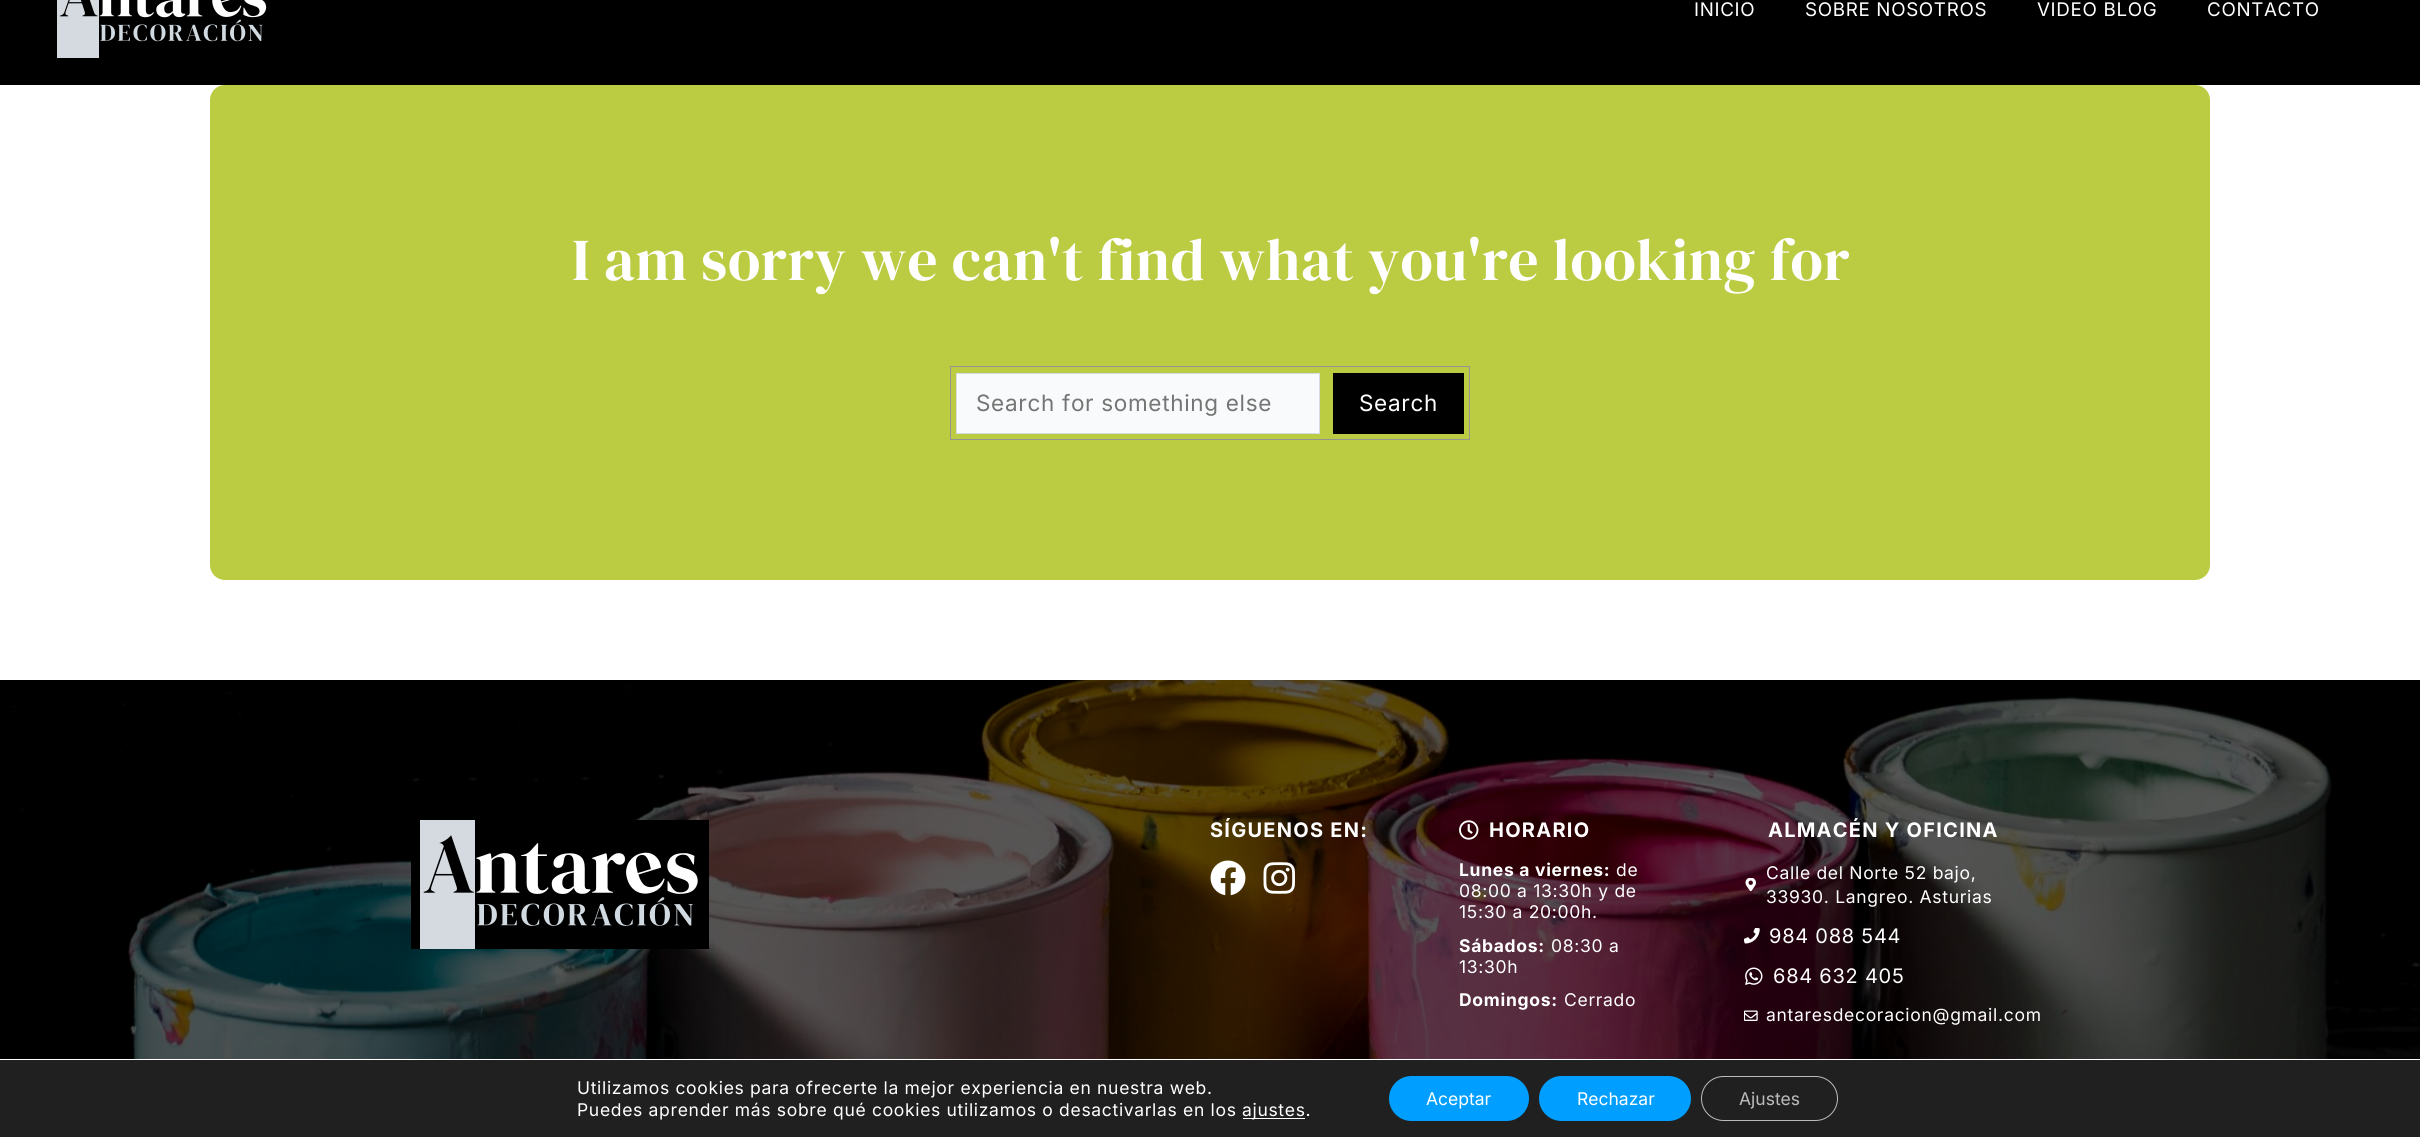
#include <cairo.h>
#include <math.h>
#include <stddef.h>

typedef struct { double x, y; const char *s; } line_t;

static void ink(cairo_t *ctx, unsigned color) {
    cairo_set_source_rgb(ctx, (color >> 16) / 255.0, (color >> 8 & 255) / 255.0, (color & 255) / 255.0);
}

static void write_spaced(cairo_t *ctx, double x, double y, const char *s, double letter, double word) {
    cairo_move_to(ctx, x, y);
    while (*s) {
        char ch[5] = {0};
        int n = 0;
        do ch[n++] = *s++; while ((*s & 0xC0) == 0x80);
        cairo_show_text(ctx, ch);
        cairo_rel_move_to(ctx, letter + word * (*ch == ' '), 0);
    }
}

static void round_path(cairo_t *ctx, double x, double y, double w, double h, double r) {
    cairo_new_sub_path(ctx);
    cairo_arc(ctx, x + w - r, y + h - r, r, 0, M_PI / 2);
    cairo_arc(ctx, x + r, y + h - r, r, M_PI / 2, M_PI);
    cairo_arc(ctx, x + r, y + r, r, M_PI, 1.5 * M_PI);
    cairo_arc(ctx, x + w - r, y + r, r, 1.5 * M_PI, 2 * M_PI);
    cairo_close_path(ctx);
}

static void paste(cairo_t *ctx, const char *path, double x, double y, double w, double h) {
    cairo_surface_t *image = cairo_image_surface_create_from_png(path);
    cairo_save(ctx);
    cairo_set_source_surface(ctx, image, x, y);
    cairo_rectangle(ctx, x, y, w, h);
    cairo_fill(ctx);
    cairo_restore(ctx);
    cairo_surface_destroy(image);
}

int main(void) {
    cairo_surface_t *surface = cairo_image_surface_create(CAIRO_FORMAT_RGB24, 2420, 1137);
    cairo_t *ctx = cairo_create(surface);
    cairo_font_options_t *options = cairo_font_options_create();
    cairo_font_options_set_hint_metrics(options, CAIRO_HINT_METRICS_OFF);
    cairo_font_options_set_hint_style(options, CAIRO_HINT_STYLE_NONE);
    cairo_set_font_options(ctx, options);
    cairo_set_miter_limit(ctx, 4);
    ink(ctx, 0xFFFFFF);
    cairo_paint(ctx);
    ink(ctx, 0x000000);
    cairo_rectangle(ctx, 0, 0, 2420, 85);
    cairo_fill(ctx);
    paste(ctx, "media/1.png", 57, 0, 210, 58);
    cairo_select_font_face(ctx, "Inter", CAIRO_FONT_SLANT_NORMAL, CAIRO_FONT_WEIGHT_NORMAL);
    cairo_set_font_size(ctx, 18.75);
    ink(ctx, 0xFFFFFF);
    {
        static const line_t items[] = {
            {1694, 16, "INICIO"},
            {1805, 16, "SOBRE NOSOTROS"},
            {2037, 16, "VIDEO BLOG"},
            {2207, 16, "CONTACTO"},
        };
        for (size_t i = 0; i < sizeof items / sizeof *items; i++) {
            write_spaced(ctx, items[i].x, items[i].y, items[i].s, 0.68, 0);
        }
    }
    ink(ctx, 0xBBCC43);
    round_path(ctx, 210, 85, 2000, 495, 15);
    cairo_fill(ctx);
    cairo_select_font_face(ctx, "DM Serif Display", CAIRO_FONT_SLANT_NORMAL, CAIRO_FONT_WEIGHT_NORMAL);
    cairo_set_font_size(ctx, 59.25);
    ink(ctx, 0xFFFFFF);
    write_spaced(ctx, 572, 280, "I am sorry we can't find what you're looking for", 0.68, 0);
    cairo_rectangle(ctx, 950.5, 366.5, 519, 73);
    ink(ctx, 0x949494);
    cairo_set_line_width(ctx, 1);
    cairo_stroke(ctx);
    ink(ctx, 0xF9FAFB);
    cairo_rectangle(ctx, 956.5, 373.5, 363, 60);
    cairo_fill_preserve(ctx);
    ink(ctx, 0xD5DBE2);
    cairo_stroke(ctx);
    cairo_select_font_face(ctx, "Inter", CAIRO_FONT_SLANT_NORMAL, CAIRO_FONT_WEIGHT_NORMAL);
    cairo_set_font_size(ctx, 22.5);
    ink(ctx, 0x757575);
    write_spaced(ctx, 976, 411, "Search for something else", 0.68, 0);
    ink(ctx, 0x000000);
    cairo_rectangle(ctx, 1333, 373, 131, 61);
    cairo_fill(ctx);
    ink(ctx, 0xFFFFFF);
    write_spaced(ctx, 1359, 411, "Search", 0.68, 0);
    ink(ctx, 0x000000);
    cairo_rectangle(ctx, 0, 680, 2420, 379);
    cairo_fill(ctx);
    paste(ctx, "media/2.png", 11, 680, 2409, 379);
    paste(ctx, "media/3.png", 411, 820, 298, 129);
    cairo_select_font_face(ctx, "Inter", CAIRO_FONT_SLANT_NORMAL, CAIRO_FONT_WEIGHT_BOLD);
    cairo_set_font_size(ctx, 20);
    ink(ctx, 0xFFFFFF);
    write_spaced(ctx, 1210, 837, "SÍGUENOS EN:", 1.25, 0);
    paste(ctx, "media/4.png", 1210, 860, 36, 36);
    paste(ctx, "media/5.png", 1263, 862, 32, 32);
    paste(ctx, "media/6.png", 1459, 820, 20, 20);
    write_spaced(ctx, 1489, 837, "HORARIO", 1.25, 0);
    cairo_set_font_size(ctx, 17.5);
    write_spaced(ctx, 1459, 876, "Lunes a viernes:", 0.7, 0);
    cairo_select_font_face(ctx, "Inter", CAIRO_FONT_SLANT_NORMAL, CAIRO_FONT_WEIGHT_NORMAL);
    {
        static const line_t items[] = {
            {1616, 876, "de"},
            {1459, 897, "08:00 a 13:30h y de"},
            {1459, 918, "15:30 a 20:00h."},
        };
        for (size_t i = 0; i < sizeof items / sizeof *items; i++) {
            write_spaced(ctx, items[i].x, items[i].y, items[i].s, 0.7, 0);
        }
    }
    cairo_select_font_face(ctx, "Inter", CAIRO_FONT_SLANT_NORMAL, CAIRO_FONT_WEIGHT_BOLD);
    write_spaced(ctx, 1459, 952, "Sábados:", 0.7, 0);
    cairo_select_font_face(ctx, "Inter", CAIRO_FONT_SLANT_NORMAL, CAIRO_FONT_WEIGHT_NORMAL);
    write_spaced(ctx, 1551, 952, "08:30 a", 0.7, 0);
    write_spaced(ctx, 1459, 973, "13:30h", 0.7, 0);
    cairo_select_font_face(ctx, "Inter", CAIRO_FONT_SLANT_NORMAL, CAIRO_FONT_WEIGHT_BOLD);
    write_spaced(ctx, 1459, 1006, "Domingos:", 0.7, 0);
    cairo_select_font_face(ctx, "Inter", CAIRO_FONT_SLANT_NORMAL, CAIRO_FONT_WEIGHT_NORMAL);
    write_spaced(ctx, 1564, 1006, "Cerrado", 0.7, 0);
    cairo_select_font_face(ctx, "Inter", CAIRO_FONT_SLANT_NORMAL, CAIRO_FONT_WEIGHT_BOLD);
    cairo_set_font_size(ctx, 20);
    write_spaced(ctx, 1768, 837, "ALMACÉN Y OFICINA", 1.25, 0);
    paste(ctx, "media/7.png", 1745, 878, 11, 13);
    cairo_select_font_face(ctx, "Inter", CAIRO_FONT_SLANT_NORMAL, CAIRO_FONT_WEIGHT_NORMAL);
    cairo_set_font_size(ctx, 17.5);
    write_spaced(ctx, 1766, 879, "Calle del Norte 52 bajo,", 0.7, 0);
    write_spaced(ctx, 1766, 903, "33930. Langreo. Asturias", 0.7, 0);
    paste(ctx, "media/8.png", 1744, 928, 16, 16);
    cairo_set_font_size(ctx, 20);
    write_spaced(ctx, 1769, 943, "984 088 544", 0.75, 0);
    paste(ctx, "media/9.png", 1745, 967, 18, 18);
    write_spaced(ctx, 1773, 983, "684 632 405", 0.75, 0);
    paste(ctx, "media/10.png", 1744, 1010, 14, 11);
    cairo_set_font_size(ctx, 17.5);
    write_spaced(ctx, 1766, 1021, "antaresdecoracion@gmail.com", 0.7, 0);
    ink(ctx, 0x202020);
    cairo_rectangle(ctx, 0, 1060, 2420, 77);
    cairo_fill(ctx);
    ink(ctx, 0xFFFFFF);
    write_spaced(ctx, 577, 1094, "Utilizamos cookies para ofrecerte la mejor experiencia en nuestra web.", 0.68, 0);
    write_spaced(ctx, 577, 1116, "Puedes aprender más sobre qué cookies utilizamos o desactivarlas en los", 0.68, 0);
    cairo_rectangle(ctx, 1243, 1118, 62, 1);
    cairo_fill(ctx);
    write_spaced(ctx, 1242, 1116, "ajustes.", 0.68, 0);
    ink(ctx, 0x009EFF);
    round_path(ctx, 1389, 1076, 140, 45, 22.5);
    cairo_fill(ctx);
    ink(ctx, 0xFFFFFF);
    cairo_move_to(ctx, 1426, 1105);
    cairo_show_text(ctx, "Aceptar");
    ink(ctx, 0x009EFF);
    round_path(ctx, 1539, 1076, 152, 45, 22.5);
    cairo_fill(ctx);
    ink(ctx, 0xFFFFFF);
    cairo_move_to(ctx, 1577, 1105);
    cairo_show_text(ctx, "Rechazar");
    round_path(ctx, 1701.5, 1076.5, 136, 44, 22);
    ink(ctx, 0xBCBCBC);
    cairo_stroke(ctx);
    cairo_move_to(ctx, 1739, 1105);
    cairo_show_text(ctx, "Ajustes");
    cairo_surface_write_to_png(surface, "image.png");
    cairo_font_options_destroy(options);
    cairo_destroy(ctx);
    cairo_surface_destroy(surface);
    return 0;
}
